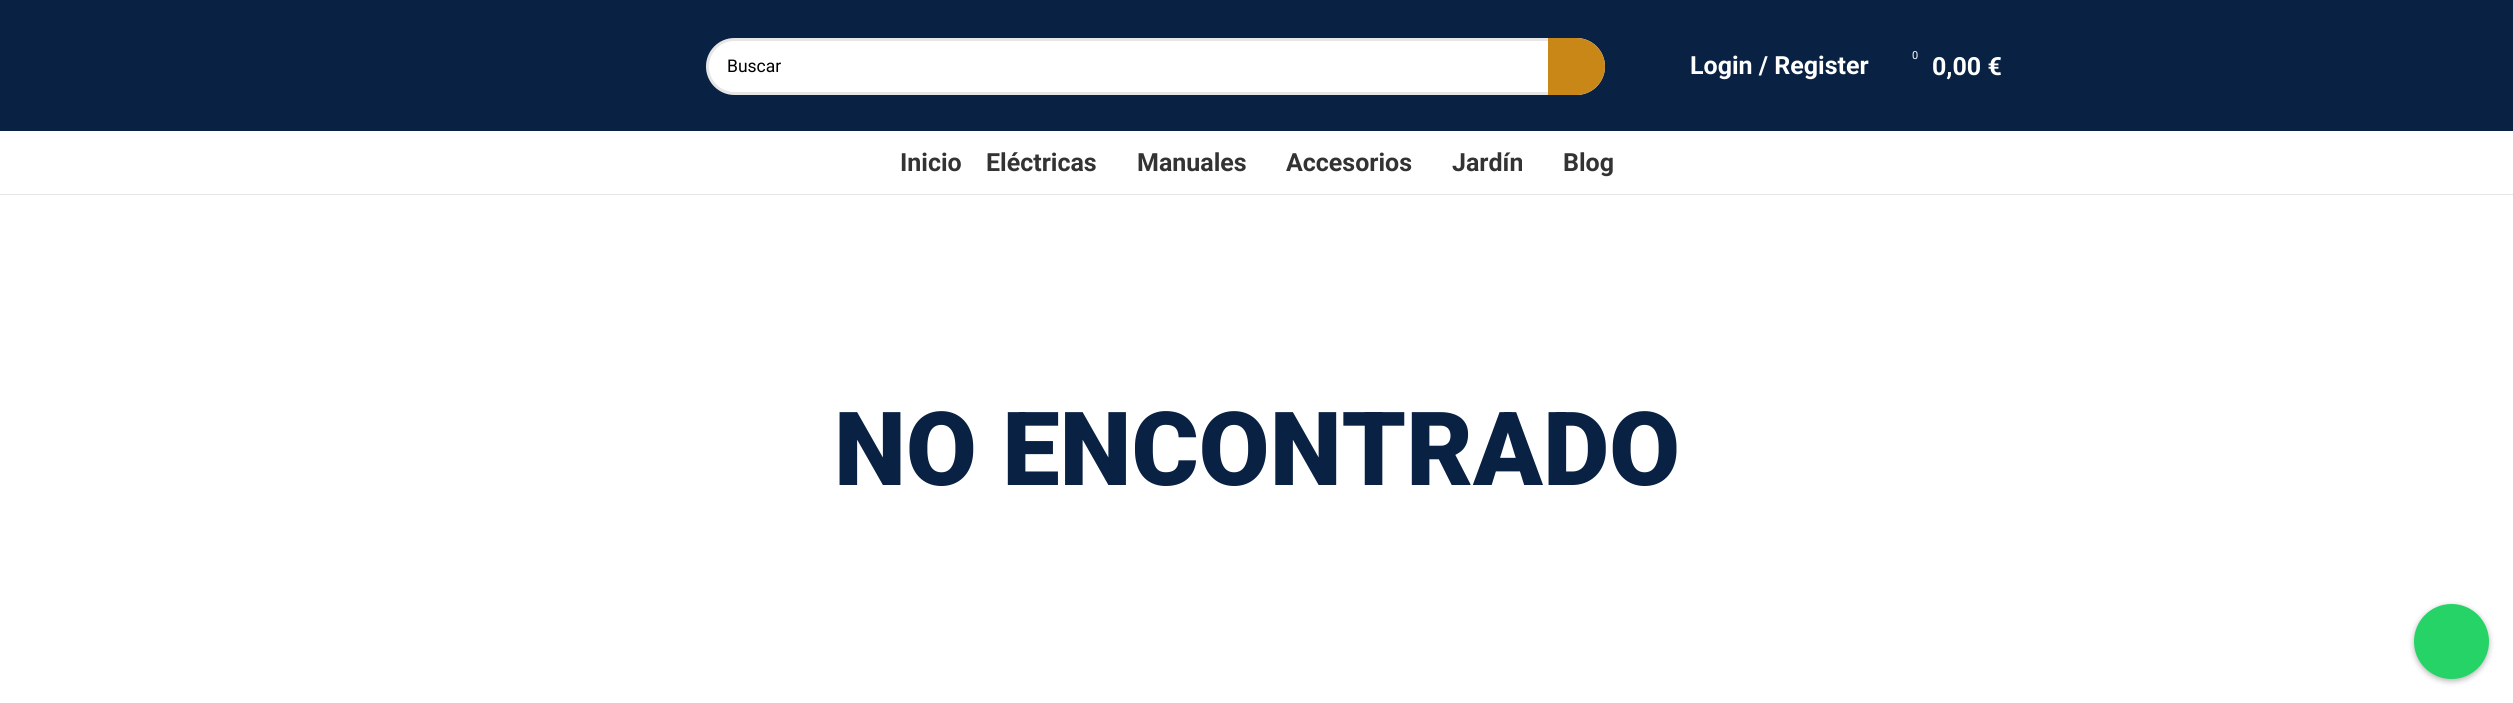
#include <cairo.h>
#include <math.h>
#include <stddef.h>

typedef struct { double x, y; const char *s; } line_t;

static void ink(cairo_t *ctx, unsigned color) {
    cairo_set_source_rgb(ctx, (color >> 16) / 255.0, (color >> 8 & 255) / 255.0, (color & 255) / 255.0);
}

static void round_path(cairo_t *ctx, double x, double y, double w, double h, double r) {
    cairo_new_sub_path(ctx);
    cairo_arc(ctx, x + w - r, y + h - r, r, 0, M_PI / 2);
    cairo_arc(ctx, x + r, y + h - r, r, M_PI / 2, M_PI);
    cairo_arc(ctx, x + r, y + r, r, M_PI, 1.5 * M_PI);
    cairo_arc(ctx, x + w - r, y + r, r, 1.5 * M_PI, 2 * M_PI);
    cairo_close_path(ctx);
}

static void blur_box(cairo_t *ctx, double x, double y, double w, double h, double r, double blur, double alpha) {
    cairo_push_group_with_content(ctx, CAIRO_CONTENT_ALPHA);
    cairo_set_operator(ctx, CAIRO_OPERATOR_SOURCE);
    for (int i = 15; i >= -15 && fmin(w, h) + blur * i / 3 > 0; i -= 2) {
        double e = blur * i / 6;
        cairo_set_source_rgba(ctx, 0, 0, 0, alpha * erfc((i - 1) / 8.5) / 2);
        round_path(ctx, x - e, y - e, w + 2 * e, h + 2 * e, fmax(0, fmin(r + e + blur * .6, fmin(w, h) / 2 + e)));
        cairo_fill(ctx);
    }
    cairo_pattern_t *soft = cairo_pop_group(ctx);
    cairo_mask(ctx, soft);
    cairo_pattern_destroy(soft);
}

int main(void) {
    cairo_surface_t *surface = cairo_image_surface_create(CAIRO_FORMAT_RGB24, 2513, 703);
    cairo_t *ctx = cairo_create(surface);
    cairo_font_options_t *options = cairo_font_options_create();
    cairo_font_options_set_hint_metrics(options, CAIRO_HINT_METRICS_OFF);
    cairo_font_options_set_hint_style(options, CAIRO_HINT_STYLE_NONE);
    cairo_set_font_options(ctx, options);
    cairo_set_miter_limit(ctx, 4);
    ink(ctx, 0xFFFFFF);
    cairo_paint(ctx);
    ink(ctx, 0x092143);
    cairo_rectangle(ctx, 0, 0, 2513, 131);
    cairo_fill(ctx);
    ink(ctx, 0xFFFFFF);
    round_path(ctx, 706, 38, 899, 57, 28.5);
    cairo_fill(ctx);
    round_path(ctx, 707.5, 39.5, 896, 54, 27);
    cairo_set_source_rgba(ctx, 0, 0, 0, 0.1);
    cairo_set_line_width(ctx, 3);
    cairo_stroke(ctx);
    cairo_select_font_face(ctx, "Roboto", CAIRO_FONT_SLANT_NORMAL, CAIRO_FONT_WEIGHT_NORMAL);
    cairo_set_font_size(ctx, 17.5);
    ink(ctx, 0x000000);
    cairo_move_to(ctx, 727, 72);
    cairo_show_text(ctx, "Buscar");
    ink(ctx, 0xC88717);
    cairo_new_path(ctx);
    cairo_move_to(ctx, 1548, 38);
    cairo_line_to(ctx, 1576.5, 38);
    cairo_curve_to(ctx, 1592, 38, 1605, 51, 1605, 66.5);
    cairo_curve_to(ctx, 1605, 82, 1592, 95, 1576.5, 95);
    cairo_line_to(ctx, 1548, 95);
    cairo_close_path(ctx);
    cairo_fill(ctx);
    cairo_select_font_face(ctx, "Roboto", CAIRO_FONT_SLANT_NORMAL, CAIRO_FONT_WEIGHT_BOLD);
    cairo_set_font_size(ctx, 25);
    ink(ctx, 0xFFFFFF);
    cairo_move_to(ctx, 1690, 74);
    cairo_show_text(ctx, "Login / Register");
    cairo_select_font_face(ctx, "Roboto", CAIRO_FONT_SLANT_NORMAL, CAIRO_FONT_WEIGHT_NORMAL);
    cairo_set_font_size(ctx, 11);
    cairo_move_to(ctx, 1912, 59);
    cairo_show_text(ctx, "0");
    cairo_select_font_face(ctx, "Roboto", CAIRO_FONT_SLANT_NORMAL, CAIRO_FONT_WEIGHT_BOLD);
    cairo_set_font_size(ctx, 25);
    cairo_move_to(ctx, 1932, 75);
    cairo_show_text(ctx, "0,00 €");
    ink(ctx, 0xE6E6E6);
    cairo_rectangle(ctx, 0, 194, 2513, 1);
    cairo_fill(ctx);
    ink(ctx, 0x333333);
    {
        static const line_t items[] = {
            {900, 171, "Inicio"},
            {986, 171, "Eléctricas"},
            {1137, 171, "Manuales"},
            {1286, 171, "Accesorios"},
            {1452, 171, "Jardín"},
            {1563, 171, "Blog"},
        };
        for (size_t i = 0; i < sizeof items / sizeof *items; i++) {
            cairo_move_to(ctx, items[i].x, items[i].y);
            cairo_show_text(ctx, items[i].s);
        }
    }
    cairo_select_font_face(ctx, "Roboto Black", CAIRO_FONT_SLANT_NORMAL, CAIRO_FONT_WEIGHT_NORMAL);
    cairo_set_font_size(ctx, 102.5);
    ink(ctx, 0x092143);
    cairo_move_to(ctx, 834, 485);
    cairo_show_text(ctx, "NO ENCONTRADO");
    ink(ctx, 0x000000);
    blur_box(ctx, 2414, 606, 75, 75, 37.5, 3, 0.3);
    ink(ctx, 0x25D366);
    cairo_arc(ctx, 2451.5, 641.5, 37.5, 0, 2 * M_PI);
    cairo_fill(ctx);
    cairo_surface_write_to_png(surface, "image.png");
    cairo_font_options_destroy(options);
    cairo_destroy(ctx);
    cairo_surface_destroy(surface);
    return 0;
}
